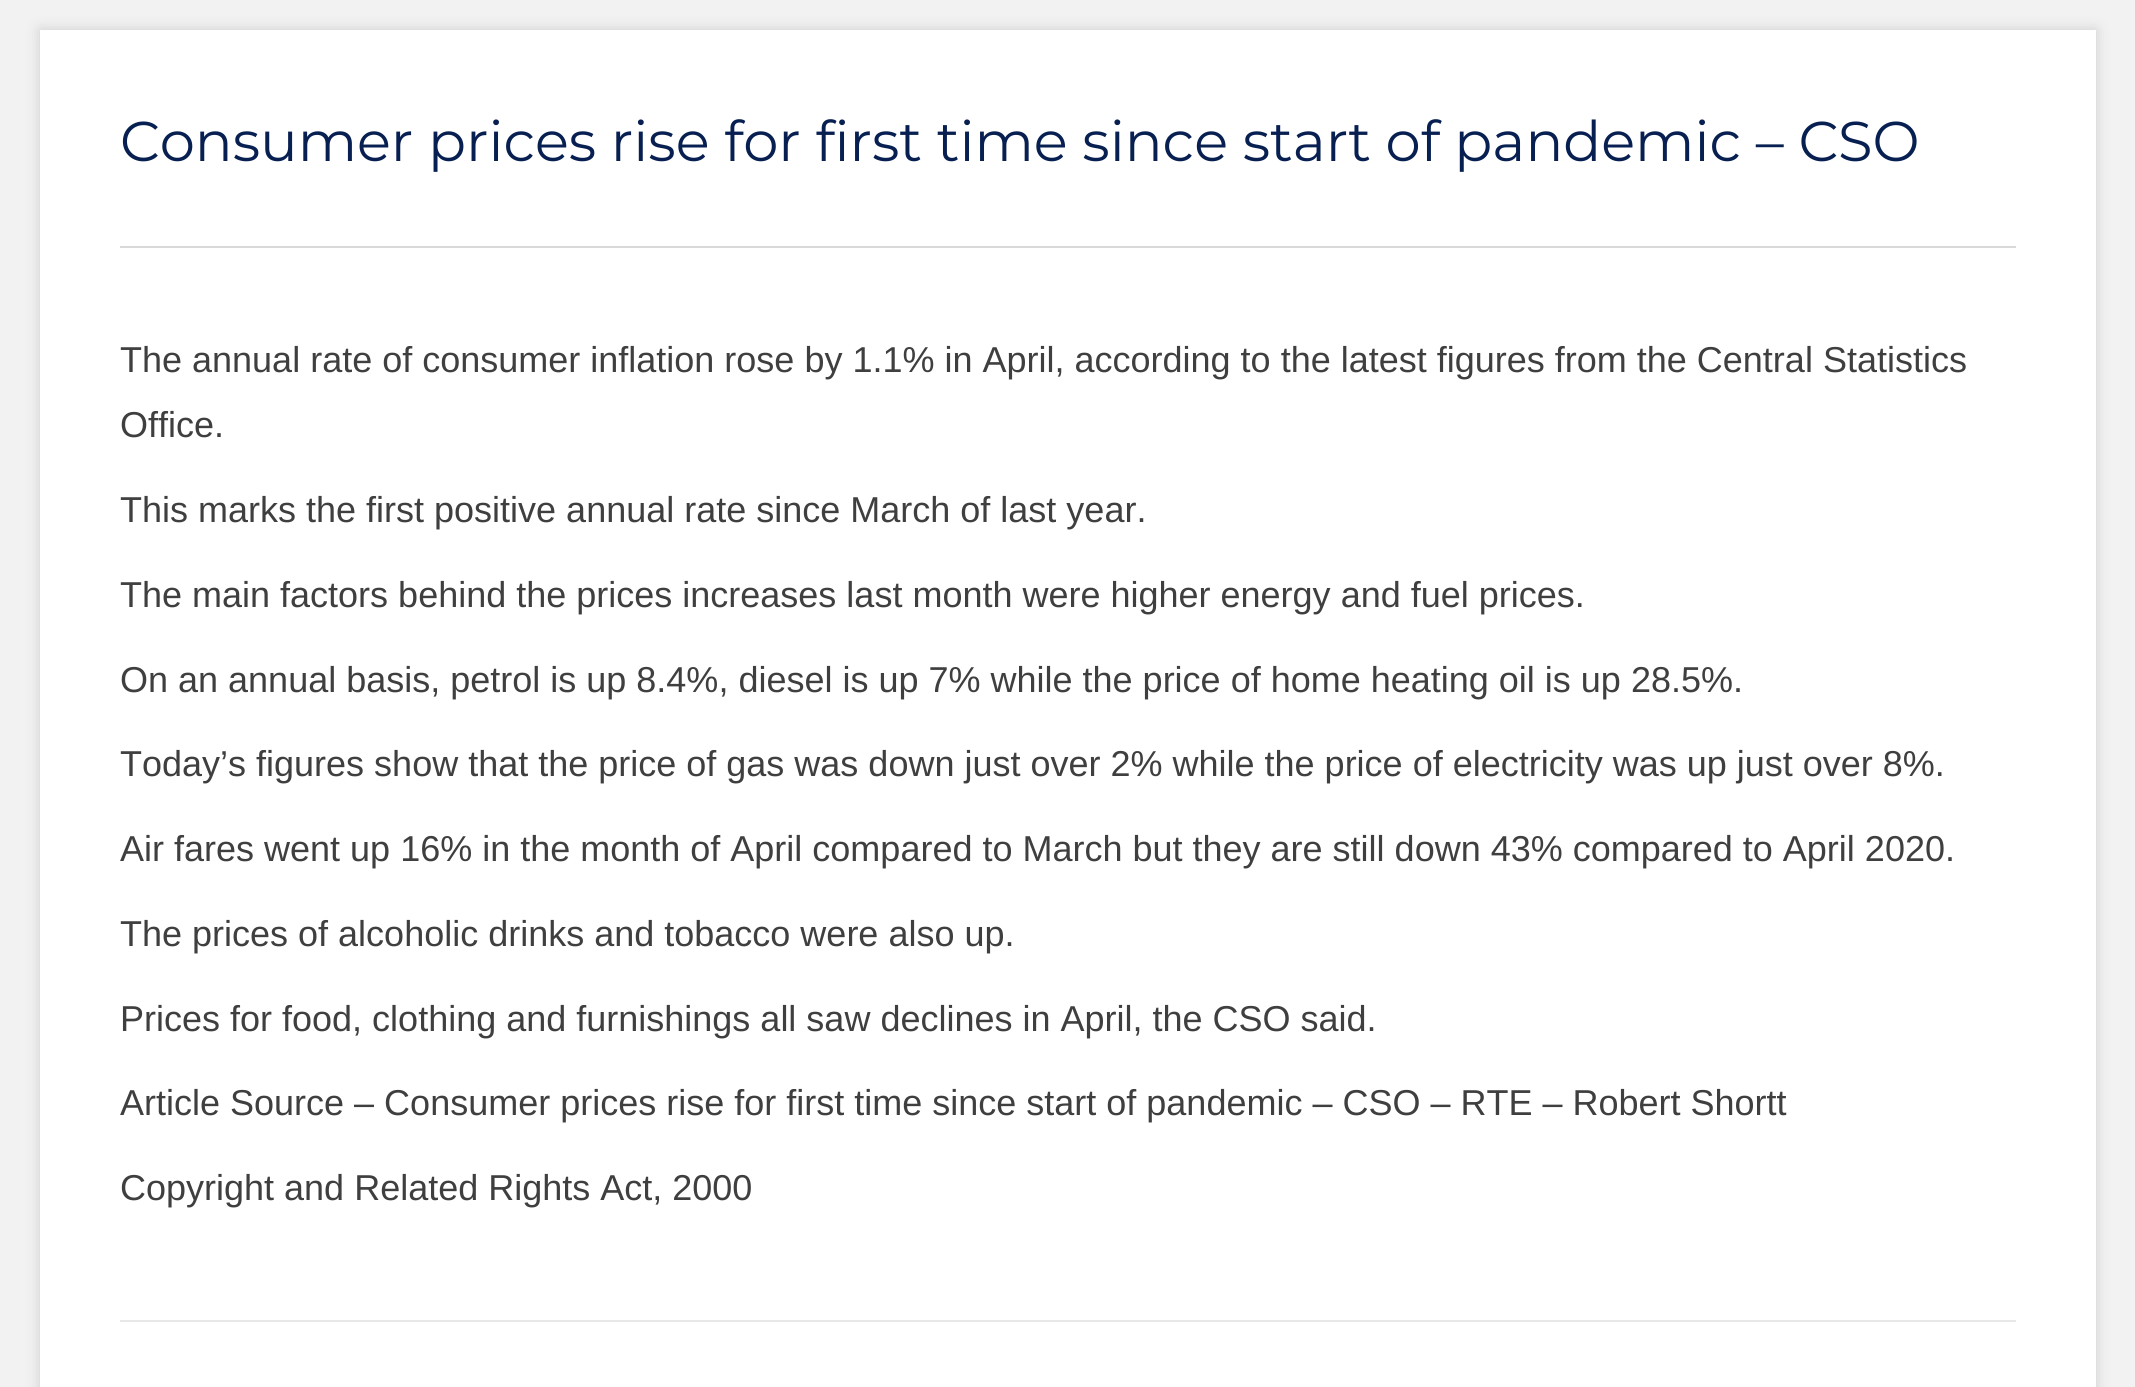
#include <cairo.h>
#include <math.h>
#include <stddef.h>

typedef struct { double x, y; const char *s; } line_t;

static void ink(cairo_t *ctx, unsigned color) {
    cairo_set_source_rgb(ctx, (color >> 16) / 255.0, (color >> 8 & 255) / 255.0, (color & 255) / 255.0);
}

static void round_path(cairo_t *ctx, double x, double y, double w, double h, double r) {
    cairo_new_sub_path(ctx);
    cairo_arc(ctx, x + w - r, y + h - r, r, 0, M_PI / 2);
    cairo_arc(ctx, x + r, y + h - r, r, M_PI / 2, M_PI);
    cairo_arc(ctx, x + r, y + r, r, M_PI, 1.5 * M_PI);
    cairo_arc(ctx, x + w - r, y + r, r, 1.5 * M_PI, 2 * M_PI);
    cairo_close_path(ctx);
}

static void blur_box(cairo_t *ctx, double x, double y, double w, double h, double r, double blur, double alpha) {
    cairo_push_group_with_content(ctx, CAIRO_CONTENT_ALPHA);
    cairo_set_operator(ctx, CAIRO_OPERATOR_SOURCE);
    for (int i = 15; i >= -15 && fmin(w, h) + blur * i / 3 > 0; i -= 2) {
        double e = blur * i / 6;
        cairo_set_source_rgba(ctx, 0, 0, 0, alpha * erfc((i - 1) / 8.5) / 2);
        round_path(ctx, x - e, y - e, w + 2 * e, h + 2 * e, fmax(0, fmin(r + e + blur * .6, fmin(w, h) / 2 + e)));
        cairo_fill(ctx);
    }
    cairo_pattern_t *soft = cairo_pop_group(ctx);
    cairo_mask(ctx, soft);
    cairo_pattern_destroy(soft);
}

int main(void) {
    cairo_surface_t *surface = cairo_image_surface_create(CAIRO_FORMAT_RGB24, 2135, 1387);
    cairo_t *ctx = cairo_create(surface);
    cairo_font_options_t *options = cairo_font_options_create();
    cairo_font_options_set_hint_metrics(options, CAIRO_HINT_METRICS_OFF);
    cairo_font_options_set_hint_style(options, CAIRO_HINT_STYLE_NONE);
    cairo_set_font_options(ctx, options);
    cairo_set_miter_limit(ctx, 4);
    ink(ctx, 0xF2F2F2);
    cairo_paint(ctx);
    ink(ctx, 0xA8A8A8);
    blur_box(ctx, 40, 30, 2056, 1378, 0, 7, 0.5);
    ink(ctx, 0xFFFFFF);
    cairo_rectangle(ctx, 40, 30, 2056, 1357);
    cairo_fill(ctx);
    cairo_select_font_face(ctx, "Montserrat Thin", CAIRO_FONT_SLANT_NORMAL, CAIRO_FONT_WEIGHT_NORMAL);
    cairo_set_font_size(ctx, 56);
    ink(ctx, 0x082051);
    cairo_move_to(ctx, 120, 161);
    cairo_show_text(ctx, "Consumer prices rise for first time since start of pandemic – CSO");
    ink(ctx, 0xD9D9D9);
    cairo_rectangle(ctx, 120, 246, 1896, 2);
    cairo_fill(ctx);
    cairo_select_font_face(ctx, "Liberation Sans", CAIRO_FONT_SLANT_NORMAL, CAIRO_FONT_WEIGHT_NORMAL);
    cairo_set_font_size(ctx, 36);
    ink(ctx, 0x3F3F3F);
    {
        static const line_t items[] = {
            {120, 372, "The annual rate of consumer inflation rose by 1.1% in April, according to the latest figures from the Central Statistics"},
            {120, 437, "Office."},
            {120, 522, "This marks the first positive annual rate since March of last year."},
            {120, 607, "The main factors behind the prices increases last month were higher energy and fuel prices."},
            {120, 692, "On an annual basis, petrol is up 8.4%, diesel is up 7% while the price of home heating oil is up 28.5%."},
            {120, 776, "Today’s figures show that the price of gas was down just over 2% while the price of electricity was up just over 8%."},
            {120, 861, "Air fares went up 16% in the month of April compared to March but they are still down 43% compared to April 2020."},
            {120, 946, "The prices of alcoholic drinks and tobacco were also up."},
            {120, 1031, "Prices for food, clothing and furnishings all saw declines in April, the CSO said."},
            {120, 1115, "Article Source – Consumer prices rise for first time since start of pandemic – CSO – RTE – Robert Shortt"},
            {120, 1200, "Copyright and Related Rights Act, 2000"},
        };
        for (size_t i = 0; i < sizeof items / sizeof *items; i++) {
            cairo_move_to(ctx, items[i].x, items[i].y);
            cairo_show_text(ctx, items[i].s);
        }
    }
    ink(ctx, 0xE8E8E8);
    cairo_rectangle(ctx, 120, 1320, 1896, 2);
    cairo_fill(ctx);
    cairo_surface_write_to_png(surface, "image.png");
    cairo_font_options_destroy(options);
    cairo_destroy(ctx);
    cairo_surface_destroy(surface);
    return 0;
}
